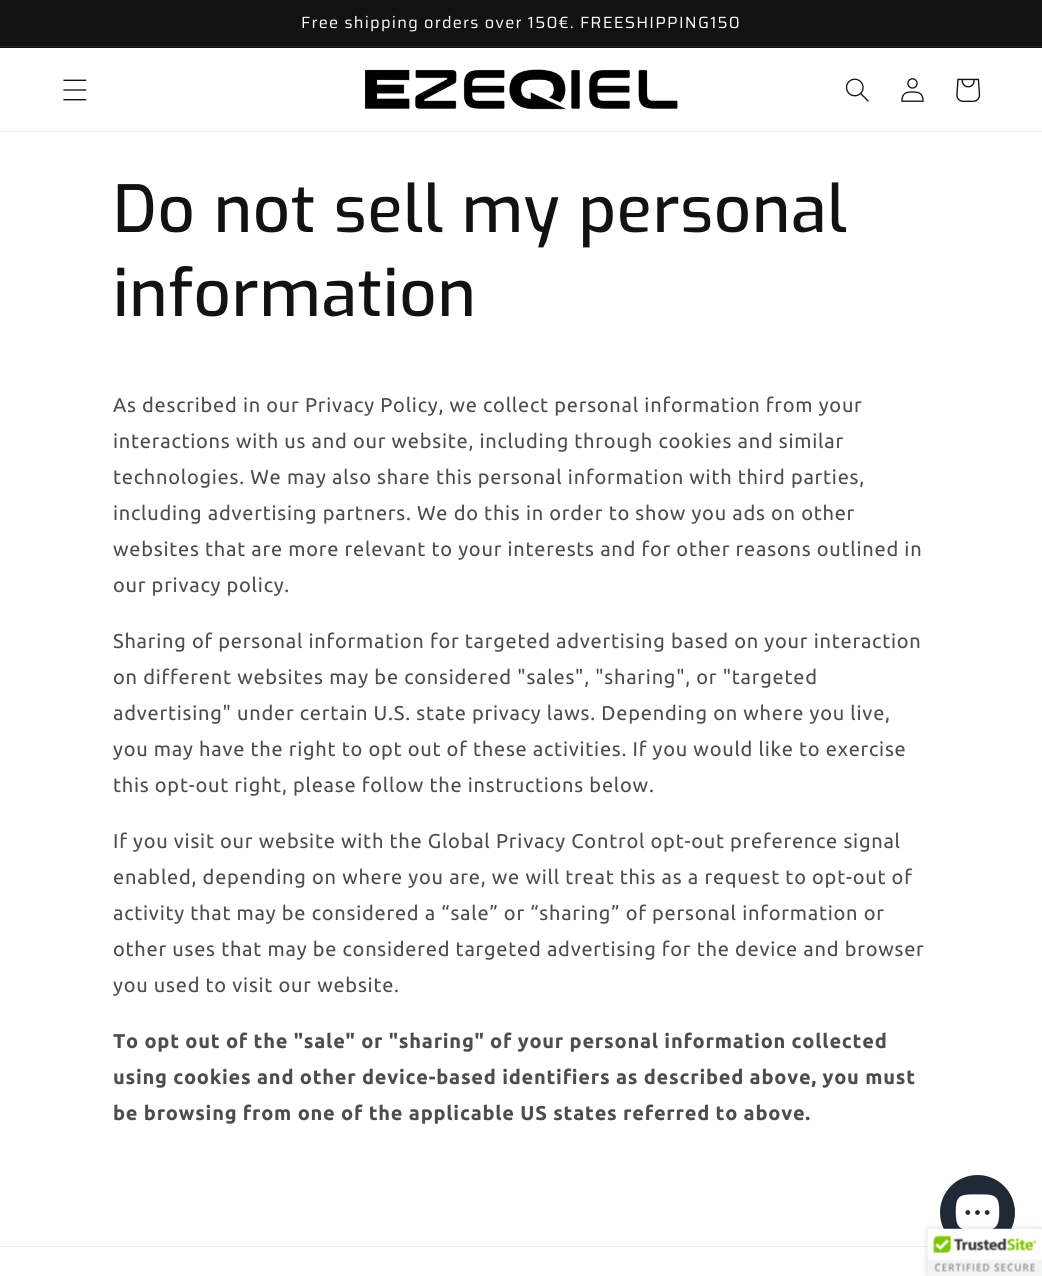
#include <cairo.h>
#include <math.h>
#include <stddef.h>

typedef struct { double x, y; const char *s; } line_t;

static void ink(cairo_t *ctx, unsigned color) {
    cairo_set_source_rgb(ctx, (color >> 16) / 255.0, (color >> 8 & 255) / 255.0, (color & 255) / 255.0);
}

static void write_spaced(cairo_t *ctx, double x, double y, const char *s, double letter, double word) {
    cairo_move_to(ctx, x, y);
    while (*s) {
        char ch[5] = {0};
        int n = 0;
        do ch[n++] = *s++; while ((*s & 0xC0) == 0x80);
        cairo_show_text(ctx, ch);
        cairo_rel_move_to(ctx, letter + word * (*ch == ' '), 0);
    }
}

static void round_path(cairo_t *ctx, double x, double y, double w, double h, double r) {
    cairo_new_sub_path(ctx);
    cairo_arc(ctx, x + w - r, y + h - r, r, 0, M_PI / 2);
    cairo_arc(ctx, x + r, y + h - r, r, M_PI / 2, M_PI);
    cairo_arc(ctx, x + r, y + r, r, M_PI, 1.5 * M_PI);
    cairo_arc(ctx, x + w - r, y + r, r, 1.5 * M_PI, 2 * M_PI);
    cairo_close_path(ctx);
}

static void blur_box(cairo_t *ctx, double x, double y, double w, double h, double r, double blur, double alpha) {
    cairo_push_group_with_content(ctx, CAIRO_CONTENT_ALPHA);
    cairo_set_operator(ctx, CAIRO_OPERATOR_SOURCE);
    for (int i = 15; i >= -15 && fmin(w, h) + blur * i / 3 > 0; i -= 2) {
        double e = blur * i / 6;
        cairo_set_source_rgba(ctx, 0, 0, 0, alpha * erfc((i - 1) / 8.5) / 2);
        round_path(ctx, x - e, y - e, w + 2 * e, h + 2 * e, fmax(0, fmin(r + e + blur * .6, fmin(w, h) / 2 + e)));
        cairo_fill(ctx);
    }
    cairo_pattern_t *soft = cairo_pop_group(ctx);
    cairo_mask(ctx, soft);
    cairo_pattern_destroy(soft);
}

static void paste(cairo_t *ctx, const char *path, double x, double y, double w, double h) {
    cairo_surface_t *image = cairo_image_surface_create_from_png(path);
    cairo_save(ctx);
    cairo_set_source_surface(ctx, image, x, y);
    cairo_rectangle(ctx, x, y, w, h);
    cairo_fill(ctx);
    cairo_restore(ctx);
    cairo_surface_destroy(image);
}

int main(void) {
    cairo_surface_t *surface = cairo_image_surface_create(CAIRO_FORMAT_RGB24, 1042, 1276);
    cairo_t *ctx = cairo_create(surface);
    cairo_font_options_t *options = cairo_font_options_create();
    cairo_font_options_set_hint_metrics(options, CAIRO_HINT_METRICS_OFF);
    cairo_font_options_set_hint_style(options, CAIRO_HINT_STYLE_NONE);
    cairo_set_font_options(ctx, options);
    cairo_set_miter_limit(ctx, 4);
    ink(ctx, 0xFFFFFF);
    cairo_paint(ctx);
    ink(ctx, 0x121212);
    cairo_rectangle(ctx, 0, 0, 1042, 48);
    cairo_fill(ctx);
    ink(ctx, 0x252525);
    cairo_rectangle(ctx, 0, 46, 1042, 1);
    cairo_fill(ctx);
    cairo_select_font_face(ctx, "Saira", CAIRO_FONT_SLANT_NORMAL, CAIRO_FONT_WEIGHT_NORMAL);
    cairo_set_font_size(ctx, 16.25);
    ink(ctx, 0xFFFFFF);
    write_spaced(ctx, 301, 28, "Free shipping orders over 150€. FREESHIPPING150", 1.25, 0);
    ink(ctx, 0xECECEC);
    cairo_rectangle(ctx, 0, 131, 1042, 1);
    cairo_fill(ctx);
    paste(ctx, "media/1.png", 63, 79, 24, 22);
    paste(ctx, "media/2.png", 365, 69, 313, 41);
    paste(ctx, "media/3.png", 845, 78, 24, 24);
    paste(ctx, "media/4.png", 901, 78, 23, 24);
    paste(ctx, "media/5.png", 956, 78, 25, 24);
    cairo_select_font_face(ctx, "Exo Medium", CAIRO_FONT_SLANT_NORMAL, CAIRO_FONT_WEIGHT_NORMAL);
    cairo_set_font_size(ctx, 65);
    ink(ctx, 0x121212);
    write_spaced(ctx, 113, 232, "Do not sell my personal", 0.75, 0);
    write_spaced(ctx, 113, 316, "information", 0.75, 0);
    cairo_select_font_face(ctx, "Ubuntu", CAIRO_FONT_SLANT_NORMAL, CAIRO_FONT_WEIGHT_NORMAL);
    cairo_set_font_size(ctx, 20);
    ink(ctx, 0x4D4D4D);
    {
        static const line_t items[] = {
            {113, 412, "As described in our Privacy Policy, we collect personal information from your"},
            {113, 448, "interactions with us and our website, including through cookies and similar"},
            {113, 484, "technologies. We may also share this personal information with third parties,"},
            {113, 520, "including advertising partners. We do this in order to show you ads on other"},
            {113, 556, "websites that are more relevant to your interests and for other reasons outlined in"},
            {113, 592, "our privacy policy."},
            {113, 648, "Sharing of personal information for targeted advertising based on your interaction"},
            {113, 684, "on different websites may be considered \"sales\", \"sharing\", or \"targeted"},
            {113, 720, "advertising\" under certain U.S. state privacy laws. Depending on where you live,"},
            {113, 756, "you may have the right to opt out of these activities. If you would like to exercise"},
            {113, 792, "this opt-out right, please follow the instructions below."},
            {113, 848, "If you visit our website with the Global Privacy Control opt-out preference signal"},
            {113, 884, "enabled, depending on where you are, we will treat this as a request to opt-out of"},
            {113, 920, "activity that may be considered a “sale” or “sharing” of personal information or"},
            {113, 956, "other uses that may be considered targeted advertising for the device and browser"},
            {113, 992, "you used to visit our website."},
        };
        for (size_t i = 0; i < sizeof items / sizeof *items; i++) {
            write_spaced(ctx, items[i].x, items[i].y, items[i].s, 0.75, 0);
        }
    }
    cairo_select_font_face(ctx, "Ubuntu", CAIRO_FONT_SLANT_NORMAL, CAIRO_FONT_WEIGHT_BOLD);
    {
        static const line_t items[] = {
            {113, 1048, "To opt out of the \"sale\" or \"sharing\" of your personal information collected"},
            {113, 1084, "using cookies and other device-based identifiers as described above, you must"},
            {113, 1120, "be browsing from one of the applicable US states referred to above."},
        };
        for (size_t i = 0; i < sizeof items / sizeof *items; i++) {
            write_spaced(ctx, items[i].x, items[i].y, items[i].s, 0.75, 0);
        }
    }
    ink(ctx, 0x202A36);
    cairo_new_path(ctx);
    cairo_arc(ctx, 977.5, 1212.5, 37.5, 0, 2 * M_PI);
    cairo_fill(ctx);
    paste(ctx, "media/6.png", 955, 1194, 45, 35);
    ink(ctx, 0xECECEC);
    cairo_rectangle(ctx, 0, 1246, 928, 1);
    cairo_fill(ctx);
    ink(ctx, 0x000000);
    blur_box(ctx, 928, 1229, 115, 47, 2.5, 3, 0.2);
    ink(ctx, 0xFFFFFF);
    cairo_new_path(ctx);
    cairo_move_to(ctx, 930.5, 1229);
    cairo_line_to(ctx, 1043, 1229);
    cairo_line_to(ctx, 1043, 1276);
    cairo_line_to(ctx, 928, 1276);
    cairo_line_to(ctx, 928, 1231.5);
    cairo_curve_to(ctx, 928, 1230, 929, 1229, 930.5, 1229);
    cairo_close_path(ctx);
    cairo_fill(ctx);
    paste(ctx, "media/7.png", 927, 1228, 115, 48);
    cairo_surface_write_to_png(surface, "image.png");
    cairo_font_options_destroy(options);
    cairo_destroy(ctx);
    cairo_surface_destroy(surface);
    return 0;
}
